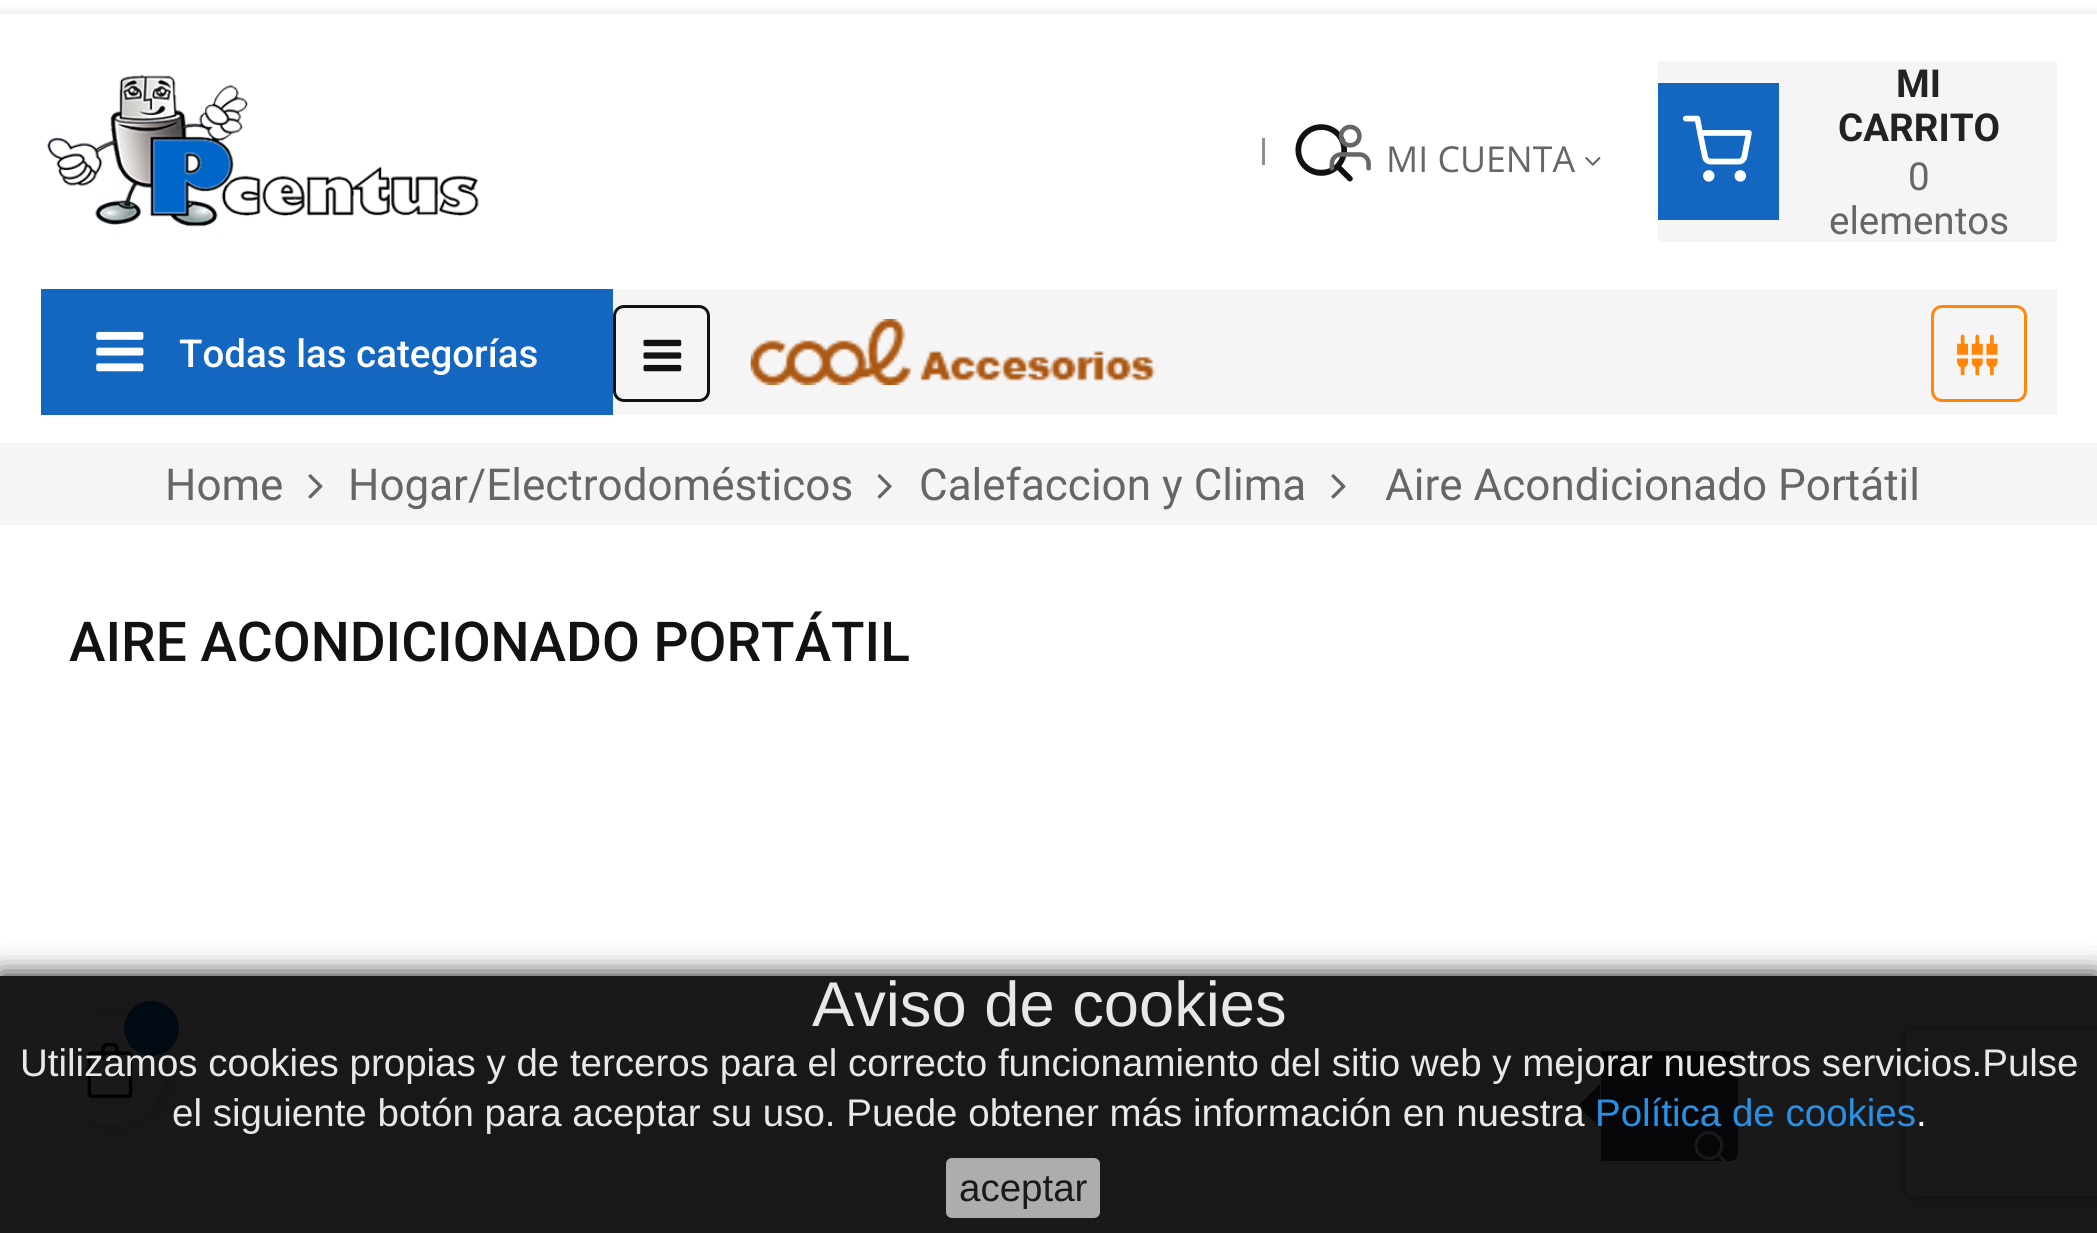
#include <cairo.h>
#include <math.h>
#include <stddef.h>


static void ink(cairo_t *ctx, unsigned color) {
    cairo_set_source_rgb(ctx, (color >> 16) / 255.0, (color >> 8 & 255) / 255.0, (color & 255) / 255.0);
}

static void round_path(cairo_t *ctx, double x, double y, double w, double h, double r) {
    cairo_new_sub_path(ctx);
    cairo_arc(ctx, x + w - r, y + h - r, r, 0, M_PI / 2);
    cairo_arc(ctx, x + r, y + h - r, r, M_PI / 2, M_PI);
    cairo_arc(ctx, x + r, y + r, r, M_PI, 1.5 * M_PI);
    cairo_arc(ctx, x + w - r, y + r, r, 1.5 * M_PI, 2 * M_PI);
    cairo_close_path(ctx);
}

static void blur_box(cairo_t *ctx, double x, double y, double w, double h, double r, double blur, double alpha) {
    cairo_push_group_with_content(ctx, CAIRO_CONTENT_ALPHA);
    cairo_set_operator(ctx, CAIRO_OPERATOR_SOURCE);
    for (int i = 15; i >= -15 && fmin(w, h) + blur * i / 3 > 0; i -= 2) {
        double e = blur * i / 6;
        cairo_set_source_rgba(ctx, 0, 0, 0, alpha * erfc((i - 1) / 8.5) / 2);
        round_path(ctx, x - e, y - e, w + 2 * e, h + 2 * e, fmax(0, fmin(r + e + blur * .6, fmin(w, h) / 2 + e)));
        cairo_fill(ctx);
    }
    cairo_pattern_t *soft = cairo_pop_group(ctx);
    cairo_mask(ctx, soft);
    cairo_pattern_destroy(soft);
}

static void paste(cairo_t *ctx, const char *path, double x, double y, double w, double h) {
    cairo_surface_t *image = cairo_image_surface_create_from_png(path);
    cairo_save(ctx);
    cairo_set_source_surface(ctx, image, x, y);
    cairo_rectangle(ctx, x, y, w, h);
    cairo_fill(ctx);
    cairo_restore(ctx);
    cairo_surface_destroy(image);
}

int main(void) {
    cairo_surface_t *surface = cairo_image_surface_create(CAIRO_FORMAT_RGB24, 2097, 1233);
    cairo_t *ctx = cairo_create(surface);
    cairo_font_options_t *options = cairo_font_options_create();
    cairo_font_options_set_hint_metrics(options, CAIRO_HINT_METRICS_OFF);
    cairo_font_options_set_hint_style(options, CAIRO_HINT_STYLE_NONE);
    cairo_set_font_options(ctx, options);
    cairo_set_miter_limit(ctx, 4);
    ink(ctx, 0xFFFFFF);
    cairo_paint(ctx);
    ink(ctx, 0x000000);
    blur_box(ctx, 0, 14, 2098, 429, 0, 7, 0.12);
    ink(ctx, 0xFFFFFF);
    cairo_rectangle(ctx, 0, 14, 2097, 429);
    cairo_fill(ctx);
    paste(ctx, "media/1.png", 46, 74, 433, 154);
    paste(ctx, "media/2.png", 1295, 124, 58, 58);
    ink(ctx, 0x909090);
    cairo_rectangle(ctx, 1262, 138, 3, 27);
    cairo_fill(ctx);
    paste(ctx, "media/3.png", 1329, 124, 42, 47);
    cairo_select_font_face(ctx, "Open Sans", CAIRO_FONT_SLANT_NORMAL, CAIRO_FONT_WEIGHT_NORMAL);
    cairo_set_font_size(ctx, 35.75);
    ink(ctx, 0x666666);
    cairo_move_to(ctx, 1386, 172);
    cairo_show_text(ctx, "MI CUENTA");
    paste(ctx, "media/4.png", 1585, 157, 16, 9);
    ink(ctx, 0xF5F5F5);
    cairo_rectangle(ctx, 1658, 61, 399, 181);
    cairo_fill(ctx);
    ink(ctx, 0x1467C1);
    cairo_rectangle(ctx, 1658, 83, 121, 137);
    cairo_fill(ctx);
    paste(ctx, "media/5.png", 1683, 115, 69, 67);
    cairo_select_font_face(ctx, "Roboto", CAIRO_FONT_SLANT_NORMAL, CAIRO_FONT_WEIGHT_BOLD);
    cairo_set_font_size(ctx, 38.5);
    ink(ctx, 0x222222);
    cairo_move_to(ctx, 1896, 97);
    cairo_show_text(ctx, "MI");
    cairo_move_to(ctx, 1838, 141);
    cairo_show_text(ctx, "CARRITO");
    cairo_select_font_face(ctx, "Roboto", CAIRO_FONT_SLANT_NORMAL, CAIRO_FONT_WEIGHT_NORMAL);
    ink(ctx, 0x666666);
    cairo_move_to(ctx, 1908, 190);
    cairo_show_text(ctx, "0");
    cairo_move_to(ctx, 1829, 234);
    cairo_show_text(ctx, "elementos");
    ink(ctx, 0xF5F5F5);
    cairo_rectangle(ctx, 613, 289, 1444, 126);
    cairo_fill(ctx);
    ink(ctx, 0x1467C1);
    cairo_rectangle(ctx, 41, 289, 572, 126);
    cairo_fill(ctx);
    paste(ctx, "media/6.png", 96, 331, 48, 41);
    cairo_select_font_face(ctx, "Roboto Medium", CAIRO_FONT_SLANT_NORMAL, CAIRO_FONT_WEIGHT_NORMAL);
    ink(ctx, 0xFFFFFF);
    cairo_move_to(ctx, 179, 367);
    cairo_show_text(ctx, "Todas las categorías");
    round_path(ctx, 614.5, 306.5, 94, 94, 9.5);
    ink(ctx, 0x121212);
    cairo_set_line_width(ctx, 3);
    cairo_stroke(ctx);
    paste(ctx, "media/7.png", 643, 339, 39, 33);
    paste(ctx, "media/8.png", 750, 319, 406, 66);
    round_path(ctx, 1932.5, 306.5, 93, 94, 9.5);
    ink(ctx, 0xFF8609);
    cairo_stroke(ctx);
    paste(ctx, "media/9.png", 1957, 334, 41, 41);
    ink(ctx, 0xF5F5F5);
    cairo_rectangle(ctx, 0, 443, 2097, 82);
    cairo_fill(ctx);
    cairo_select_font_face(ctx, "Roboto", CAIRO_FONT_SLANT_NORMAL, CAIRO_FONT_WEIGHT_NORMAL);
    cairo_set_font_size(ctx, 44);
    ink(ctx, 0x666666);
    cairo_move_to(ctx, 165, 500);
    cairo_show_text(ctx, "Home");
    paste(ctx, "media/10.png", 308, 474, 15, 25);
    cairo_move_to(ctx, 348, 500);
    cairo_show_text(ctx, "Hogar/Electrodomésticos");
    paste(ctx, "media/11.png", 877, 474, 15, 25);
    cairo_move_to(ctx, 919, 500);
    cairo_show_text(ctx, "Calefaccion y Clima");
    paste(ctx, "media/10.png", 1331, 474, 15, 25);
    cairo_move_to(ctx, 1385, 500);
    cairo_show_text(ctx, "Aire Acondicionado Portátil");
    cairo_select_font_face(ctx, "Roboto Medium", CAIRO_FONT_SLANT_NORMAL, CAIRO_FONT_WEIGHT_NORMAL);
    cairo_set_font_size(ctx, 55);
    ink(ctx, 0x121212);
    cairo_move_to(ctx, 69, 661);
    cairo_show_text(ctx, "AIRE ACONDICIONADO PORTÁTIL");
    ink(ctx, 0xF1F1F1);
    round_path(ctx, 363, 1051, 1375, 110, 14);
    cairo_fill(ctx);
    ink(ctx, 0x333B48);
    cairo_new_path(ctx);
    cairo_move_to(ctx, 1601, 1051);
    cairo_line_to(ctx, 1730, 1051);
    cairo_curve_to(ctx, 1734.5, 1051, 1738, 1054.5, 1738, 1059);
    cairo_line_to(ctx, 1738, 1153);
    cairo_curve_to(ctx, 1738, 1157.5, 1734.5, 1161, 1730, 1161);
    cairo_line_to(ctx, 1601, 1161);
    cairo_close_path(ctx);
    cairo_fill(ctx);
    cairo_new_path(ctx);
    cairo_move_to(ctx, 1600, 1084);
    cairo_line_to(ctx, 1600, 1128);
    cairo_line_to(ctx, 1578, 1106);
    cairo_close_path(ctx);
    cairo_fill(ctx);
    paste(ctx, "media/12.png", 1694, 1131, 33, 30);
    ink(ctx, 0x000000);
    blur_box(ctx, 61, 1015, 110, 110, 55, 14, 0.2);
    ink(ctx, 0xFFFFFF);
    cairo_arc(ctx, 110, 1070, 55, 0, 2 * M_PI);
    cairo_fill(ctx);
    paste(ctx, "media/13.png", 87, 1043, 46, 55);
    ink(ctx, 0x1467C1);
    cairo_arc(ctx, 151.5, 1028.5, 27.5, 0, 2 * M_PI);
    cairo_fill(ctx);
    cairo_save(ctx);
    cairo_set_fill_rule(ctx, CAIRO_FILL_RULE_EVEN_ODD);
    cairo_new_path(ctx);
    cairo_move_to(ctx, 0, 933);
    cairo_line_to(ctx, 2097, 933);
    cairo_line_to(ctx, 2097, 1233);
    cairo_line_to(ctx, 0, 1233);
    cairo_close_path(ctx);
    cairo_move_to(ctx, 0, 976);
    cairo_line_to(ctx, 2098, 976);
    cairo_line_to(ctx, 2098, 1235);
    cairo_line_to(ctx, 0, 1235);
    cairo_close_path(ctx);
    cairo_clip(ctx);
    ink(ctx, 0x000000);
    blur_box(ctx, 0, 976, 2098, 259, 0, 14, 0.9);
    cairo_restore(ctx);
    cairo_save(ctx);
    cairo_set_fill_rule(ctx, CAIRO_FILL_RULE_EVEN_ODD);
    cairo_new_path(ctx);
    cairo_move_to(ctx, 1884, 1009);
    cairo_line_to(ctx, 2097, 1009);
    cairo_line_to(ctx, 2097, 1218);
    cairo_line_to(ctx, 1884, 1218);
    cairo_close_path(ctx);
    cairo_move_to(ctx, 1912, 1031);
    cairo_line_to(ctx, 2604, 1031);
    cairo_curve_to(ctx, 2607.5, 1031, 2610, 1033.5, 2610, 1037);
    cairo_line_to(ctx, 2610, 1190);
    cairo_curve_to(ctx, 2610, 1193.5, 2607.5, 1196, 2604, 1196);
    cairo_line_to(ctx, 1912, 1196);
    cairo_curve_to(ctx, 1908.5, 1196, 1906, 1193.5, 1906, 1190);
    cairo_line_to(ctx, 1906, 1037);
    cairo_curve_to(ctx, 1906, 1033.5, 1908.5, 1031, 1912, 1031);
    cairo_close_path(ctx);
    cairo_clip(ctx);
    ink(ctx, 0x808080);
    blur_box(ctx, 1906, 1031, 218, 165, 6, 7, 1);
    cairo_restore(ctx);
    cairo_set_source_rgba(ctx, 0, 0, 0, 0.9);
    cairo_rectangle(ctx, 0, 976, 2097, 257);
    cairo_fill(ctx);
    cairo_select_font_face(ctx, "Liberation Sans", CAIRO_FONT_SLANT_NORMAL, CAIRO_FONT_WEIGHT_NORMAL);
    cairo_set_font_size(ctx, 63.25);
    ink(ctx, 0xE8E8E8);
    cairo_move_to(ctx, 812, 1026);
    cairo_show_text(ctx, "Aviso de cookies");
    cairo_set_font_size(ctx, 38.5);
    cairo_move_to(ctx, 20, 1076);
    cairo_show_text(ctx, "Utilizamos cookies propias y de terceros para el correcto funcionamiento del sitio web y mejorar nuestros servicios.Pulse");
    cairo_move_to(ctx, 172, 1126);
    cairo_show_text(ctx, "el siguiente botón para aceptar su uso. Puede obtener más información en nuestra");
    ink(ctx, 0x2991E5);
    cairo_move_to(ctx, 1595, 1126);
    cairo_show_text(ctx, "Política de cookies");
    ink(ctx, 0xFFFFFF);
    cairo_move_to(ctx, 1916, 1126);
    cairo_show_text(ctx, ".");
    ink(ctx, 0xADADAD);
    round_path(ctx, 946, 1158, 154, 60, 6);
    cairo_fill(ctx);
    ink(ctx, 0x1A1A1A);
    cairo_move_to(ctx, 959, 1201);
    cairo_show_text(ctx, "aceptar");
    cairo_surface_write_to_png(surface, "image.png");
    cairo_font_options_destroy(options);
    cairo_destroy(ctx);
    cairo_surface_destroy(surface);
    return 0;
}
